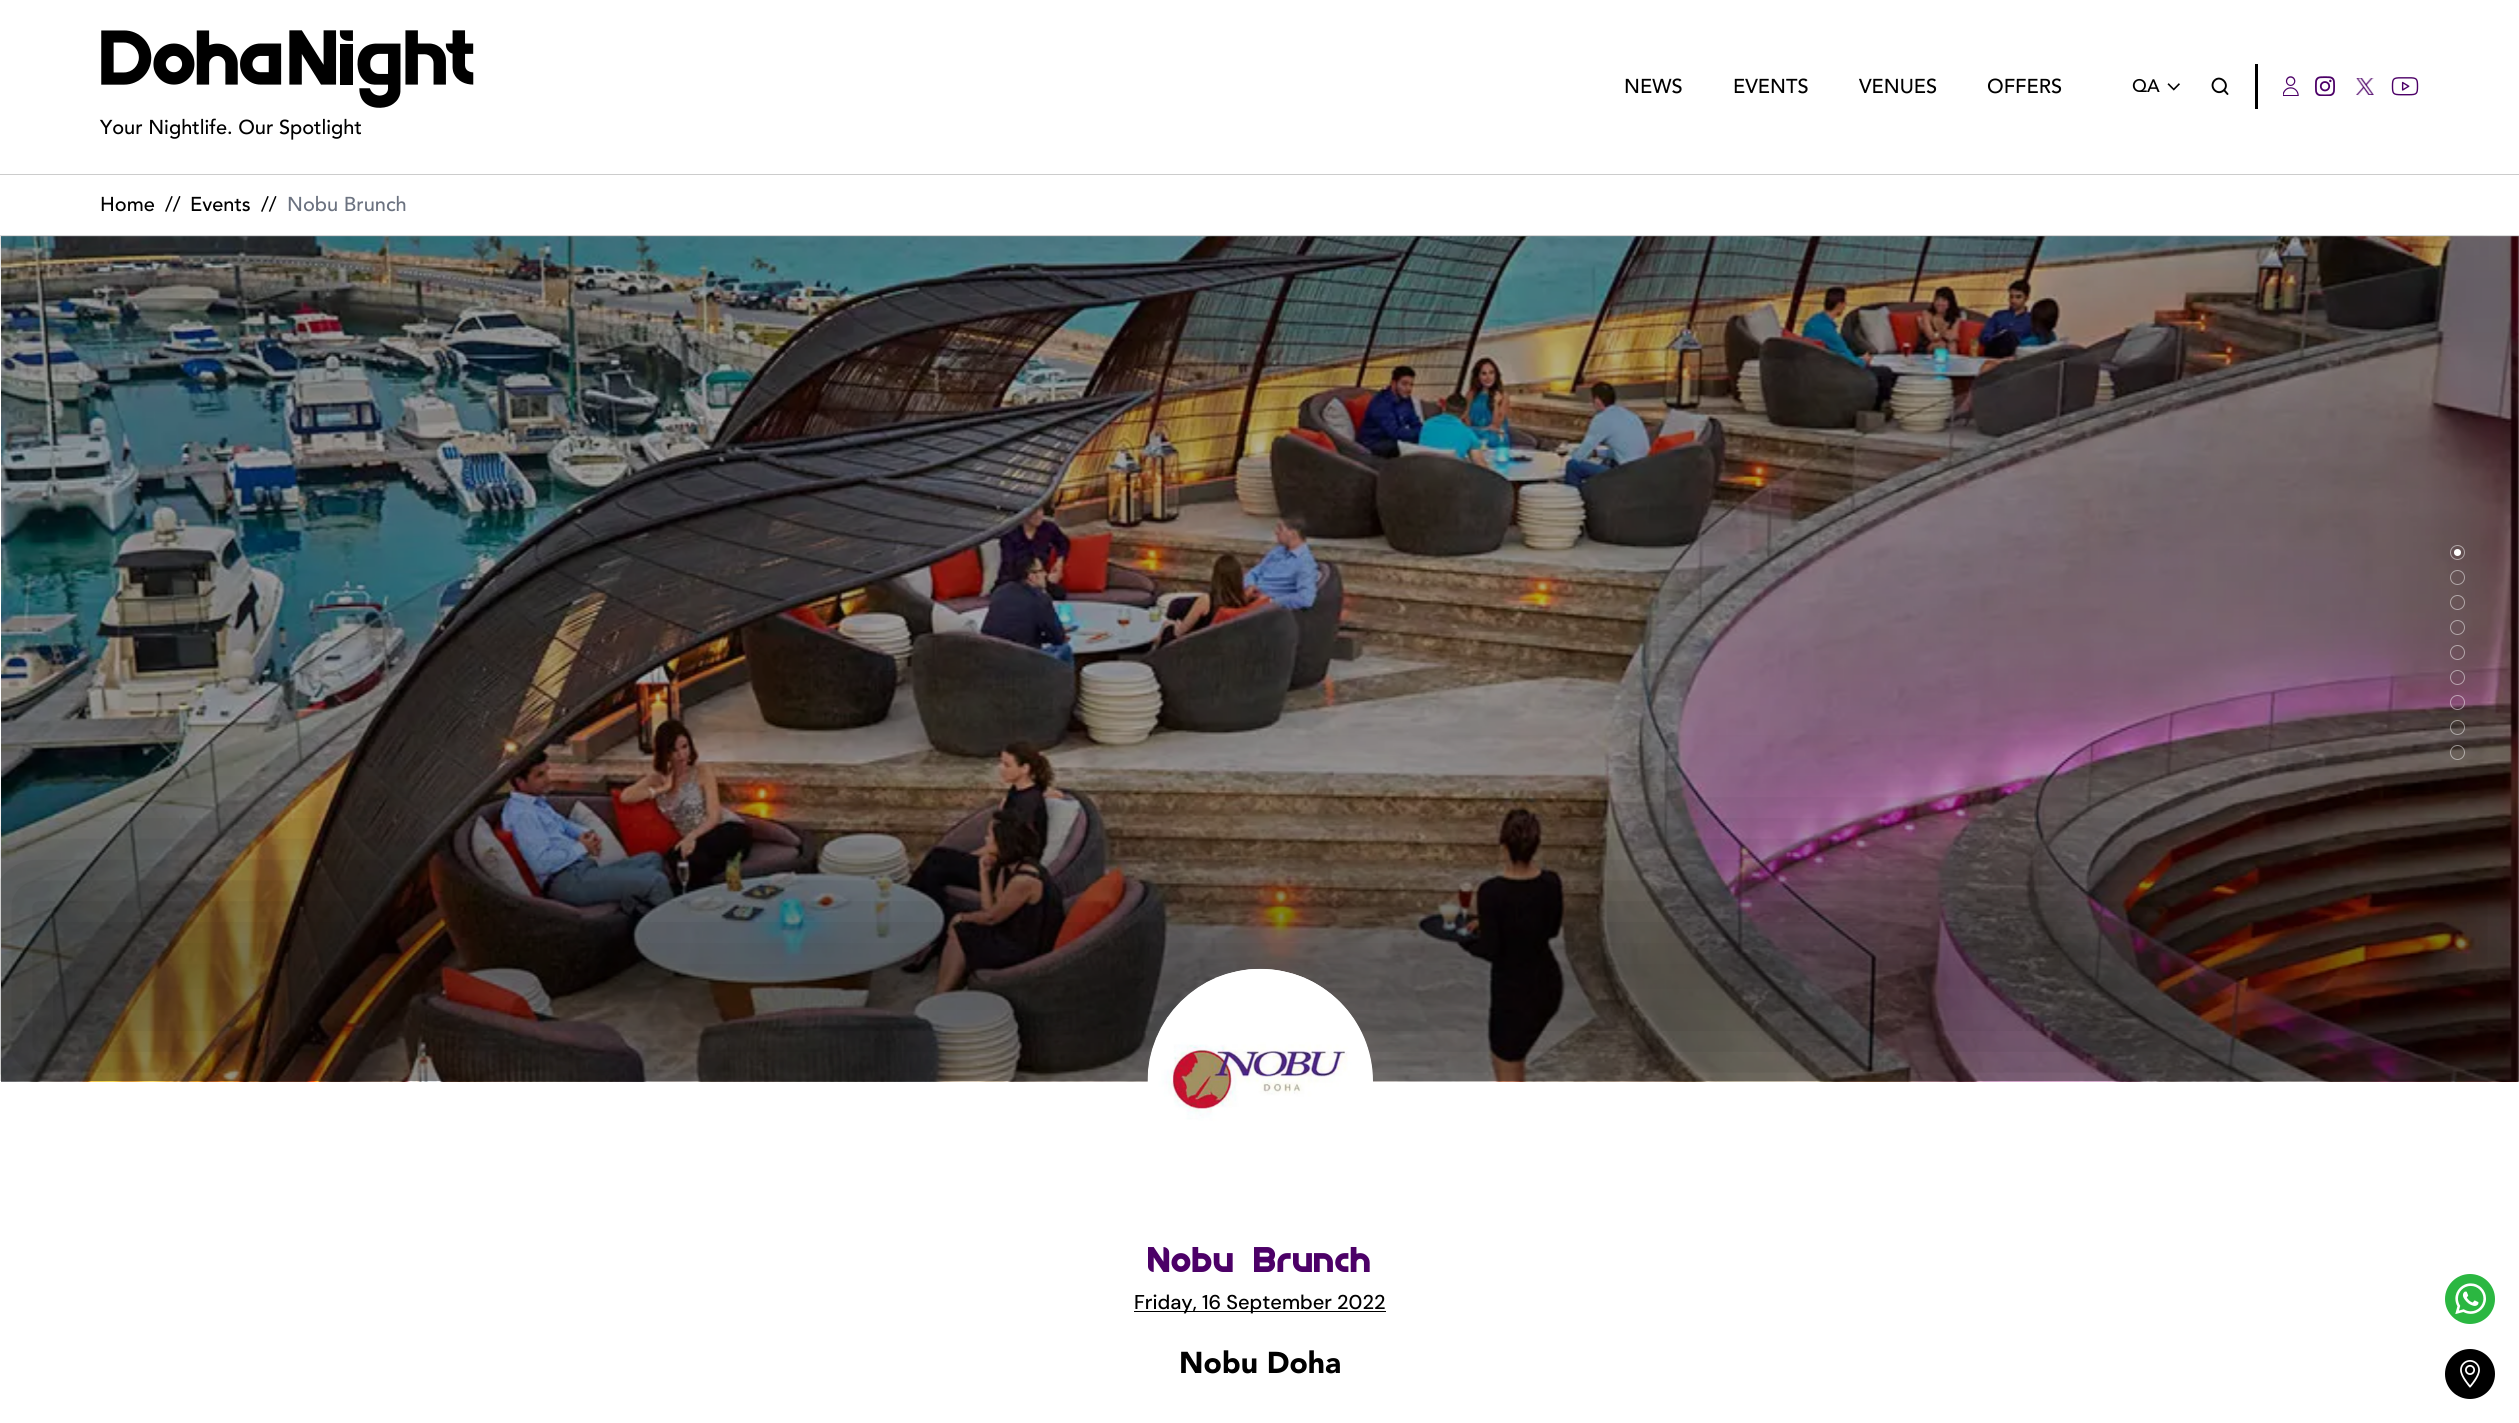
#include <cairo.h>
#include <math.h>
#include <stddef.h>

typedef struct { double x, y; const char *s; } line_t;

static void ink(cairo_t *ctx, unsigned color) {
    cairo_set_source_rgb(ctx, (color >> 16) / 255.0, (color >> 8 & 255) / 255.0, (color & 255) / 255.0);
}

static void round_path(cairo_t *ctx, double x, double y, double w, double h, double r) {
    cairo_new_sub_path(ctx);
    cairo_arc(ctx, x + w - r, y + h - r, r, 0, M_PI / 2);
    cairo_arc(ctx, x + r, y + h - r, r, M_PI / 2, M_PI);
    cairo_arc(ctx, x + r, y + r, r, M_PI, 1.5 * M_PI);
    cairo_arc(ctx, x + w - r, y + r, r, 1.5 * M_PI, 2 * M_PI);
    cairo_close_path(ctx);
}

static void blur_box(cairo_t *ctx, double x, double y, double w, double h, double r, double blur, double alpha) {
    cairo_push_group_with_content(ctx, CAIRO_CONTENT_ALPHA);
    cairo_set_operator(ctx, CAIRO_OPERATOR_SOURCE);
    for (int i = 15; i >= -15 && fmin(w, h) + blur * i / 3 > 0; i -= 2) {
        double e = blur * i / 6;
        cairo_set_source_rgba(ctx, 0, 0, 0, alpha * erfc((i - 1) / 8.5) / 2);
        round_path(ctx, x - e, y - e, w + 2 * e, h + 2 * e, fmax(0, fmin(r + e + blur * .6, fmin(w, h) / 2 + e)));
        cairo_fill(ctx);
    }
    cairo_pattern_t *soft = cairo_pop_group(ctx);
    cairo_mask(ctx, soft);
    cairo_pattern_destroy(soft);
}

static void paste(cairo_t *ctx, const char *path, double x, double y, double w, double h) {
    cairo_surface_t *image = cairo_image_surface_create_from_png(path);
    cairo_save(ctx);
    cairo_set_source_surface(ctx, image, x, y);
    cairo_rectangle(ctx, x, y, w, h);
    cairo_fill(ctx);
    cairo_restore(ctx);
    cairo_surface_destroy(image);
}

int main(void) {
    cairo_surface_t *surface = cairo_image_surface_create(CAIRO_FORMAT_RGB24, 2519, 1423);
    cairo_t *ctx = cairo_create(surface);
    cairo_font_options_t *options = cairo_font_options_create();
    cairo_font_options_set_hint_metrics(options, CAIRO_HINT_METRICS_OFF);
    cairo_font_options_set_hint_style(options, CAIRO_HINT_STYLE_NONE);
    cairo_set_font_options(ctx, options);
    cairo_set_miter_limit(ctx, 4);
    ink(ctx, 0xFFFFFF);
    cairo_paint(ctx);
    ink(ctx, 0xCCCCCC);
    cairo_rectangle(ctx, 0, 174, 2519, 1);
    cairo_fill(ctx);
    paste(ctx, "media/6.png", 101, 30, 373, 78);
    cairo_save(ctx);
    cairo_rectangle(ctx, 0, 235, 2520, 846);
    cairo_clip(ctx);
    ink(ctx, 0x999999);
    blur_box(ctx, 1, 13, 2518, 212, 0, 62.5, 0.5);
    blur_box(ctx, 1, 13, 2518, 212, 0, 62.5, 0.5);
    cairo_restore(ctx);
    cairo_select_font_face(ctx, "Avenir Medium", CAIRO_FONT_SLANT_NORMAL, CAIRO_FONT_WEIGHT_NORMAL);
    cairo_set_font_size(ctx, 20);
    ink(ctx, 0x000000);
    {
        static const line_t items[] = {
            {1624, 93, "NEWS"},
            {1733, 93, "EVENTS"},
            {1859, 93, "VENUES"},
            {1987, 93, "OFFERS"},
        };
        for (size_t i = 0; i < sizeof items / sizeof *items; i++) {
            cairo_move_to(ctx, items[i].x, items[i].y);
            cairo_show_text(ctx, items[i].s);
        }
    }
    cairo_set_font_size(ctx, 18);
    cairo_move_to(ctx, 2132, 92);
    cairo_show_text(ctx, "QA");
    paste(ctx, "media/1.png", 2167, 83, 13, 8);
    cairo_new_path(ctx);
    cairo_move_to(ctx, 2227.5, 94);
    cairo_line_to(ctx, 2224, 90);
    cairo_move_to(ctx, 2224, 90);
    cairo_curve_to(ctx, 2230, 84, 2220.5, 74.5, 2214.5, 80.5);
    cairo_curve_to(ctx, 2208.5, 87, 2217.5, 96.5, 2224, 90);
    cairo_close_path(ctx);
    cairo_set_line_width(ctx, 1.9);
    cairo_set_line_cap(ctx, CAIRO_LINE_CAP_ROUND);
    cairo_set_line_join(ctx, CAIRO_LINE_JOIN_ROUND);
    cairo_stroke(ctx);
    cairo_rectangle(ctx, 2255, 64, 3, 45);
    cairo_fill(ctx);
    paste(ctx, "media/2.png", 2283, 76, 16, 20);
    paste(ctx, "media/3.png", 2315, 76, 20, 20);
    paste(ctx, "media/4.png", 2356, 78, 18, 18);
    paste(ctx, "media/5.png", 2391, 77, 28, 19);
    cairo_set_font_size(ctx, 20);
    cairo_move_to(ctx, 100, 134);
    cairo_show_text(ctx, "Your Nightlife. Our Spotlight");
    paste(ctx, "media/7.png", 1, 236, 2518, 846);
    cairo_save(ctx);
    cairo_rectangle(ctx, 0, 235, 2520, 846);
    cairo_clip(ctx);
    ink(ctx, 0x000000);
    blur_box(ctx, 1, 870, 2518, 213, 0, 62.5, 0.2);
    blur_box(ctx, 1, 870, 2518, 213, 0, 62.5, 0.2);
    cairo_restore(ctx);
    cairo_set_source_rgba(ctx, 0, 0, 0, 0.3);
    cairo_rectangle(ctx, 1, 236, 2518, 845);
    cairo_fill(ctx);
    cairo_arc(ctx, 2457.5, 552.5, 7, 0, 2 * M_PI);
    cairo_set_source_rgba(ctx, 0.98, 0.98, 0.98, 0.5);
    cairo_set_line_width(ctx, 1);
    cairo_set_line_cap(ctx, CAIRO_LINE_CAP_BUTT);
    cairo_set_line_join(ctx, CAIRO_LINE_JOIN_MITER);
    cairo_stroke(ctx);
    ink(ctx, 0xFFFFFF);
    cairo_arc(ctx, 2457.5, 552.5, 3.5, 0, 2 * M_PI);
    cairo_fill(ctx);
    cairo_arc(ctx, 2457.5, 577.5, 7, 0, 2 * M_PI);
    cairo_set_source_rgba(ctx, 0.98, 0.98, 0.98, 0.5);
    cairo_stroke(ctx);
    cairo_arc(ctx, 2457.5, 602.5, 7, 0, 2 * M_PI);
    cairo_stroke(ctx);
    cairo_arc(ctx, 2457.5, 627.5, 7, 0, 2 * M_PI);
    cairo_stroke(ctx);
    cairo_arc(ctx, 2457.5, 652.5, 7, 0, 2 * M_PI);
    cairo_stroke(ctx);
    cairo_arc(ctx, 2457.5, 677.5, 7, 0, 2 * M_PI);
    cairo_stroke(ctx);
    cairo_arc(ctx, 2457.5, 702.5, 7, 0, 2 * M_PI);
    cairo_stroke(ctx);
    cairo_arc(ctx, 2457.5, 727.5, 7, 0, 2 * M_PI);
    cairo_stroke(ctx);
    cairo_arc(ctx, 2457.5, 752.5, 7, 0, 2 * M_PI);
    cairo_stroke(ctx);
    ink(ctx, 0x000000);
    {
        static const line_t items[] = {
            {100, 211, "Home"},
            {165, 211, "//"},
            {190, 211, "Events"},
            {261, 211, "//"},
        };
        for (size_t i = 0; i < sizeof items / sizeof *items; i++) {
            cairo_move_to(ctx, items[i].x, items[i].y);
            cairo_show_text(ctx, items[i].s);
        }
    }
    ink(ctx, 0x6B7280);
    cairo_move_to(ctx, 287, 211);
    cairo_show_text(ctx, "Nobu Brunch");
    ink(ctx, 0xFFFFFF);
    cairo_new_path(ctx);
    cairo_arc(ctx, 1260.5, 1081.5, 112.5, 0, 2 * M_PI);
    cairo_fill(ctx);
    paste(ctx, "media/8.png", 1147, 968, 226, 226);
    cairo_select_font_face(ctx, "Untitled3", CAIRO_FONT_SLANT_NORMAL, CAIRO_FONT_WEIGHT_NORMAL);
    cairo_set_font_size(ctx, 37.5);
    ink(ctx, 0x4C0067);
    cairo_move_to(ctx, 1148, 1272);
    cairo_show_text(ctx, "Nobu Brunch");
    ink(ctx, 0x000000);
    cairo_rectangle(ctx, 1134, 1311, 252, 1);
    cairo_fill(ctx);
    cairo_select_font_face(ctx, "DM Sans Medium", CAIRO_FONT_SLANT_NORMAL, CAIRO_FONT_WEIGHT_NORMAL);
    cairo_set_font_size(ctx, 20);
    cairo_move_to(ctx, 1134, 1309);
    cairo_show_text(ctx, "Friday, 16 September 2022");
    cairo_select_font_face(ctx, "Avenir Black", CAIRO_FONT_SLANT_NORMAL, CAIRO_FONT_WEIGHT_NORMAL);
    cairo_set_font_size(ctx, 30);
    cairo_move_to(ctx, 1179, 1373);
    cairo_show_text(ctx, "Nobu Doha");
    paste(ctx, "media/9.png", 2445, 1274, 50, 50);
    cairo_arc(ctx, 2470, 1374, 25, 0, 2 * M_PI);
    cairo_fill(ctx);
    paste(ctx, "media/10.png", 2460, 1360, 20, 28);
    cairo_surface_write_to_png(surface, "image.png");
    cairo_font_options_destroy(options);
    cairo_destroy(ctx);
    cairo_surface_destroy(surface);
    return 0;
}
